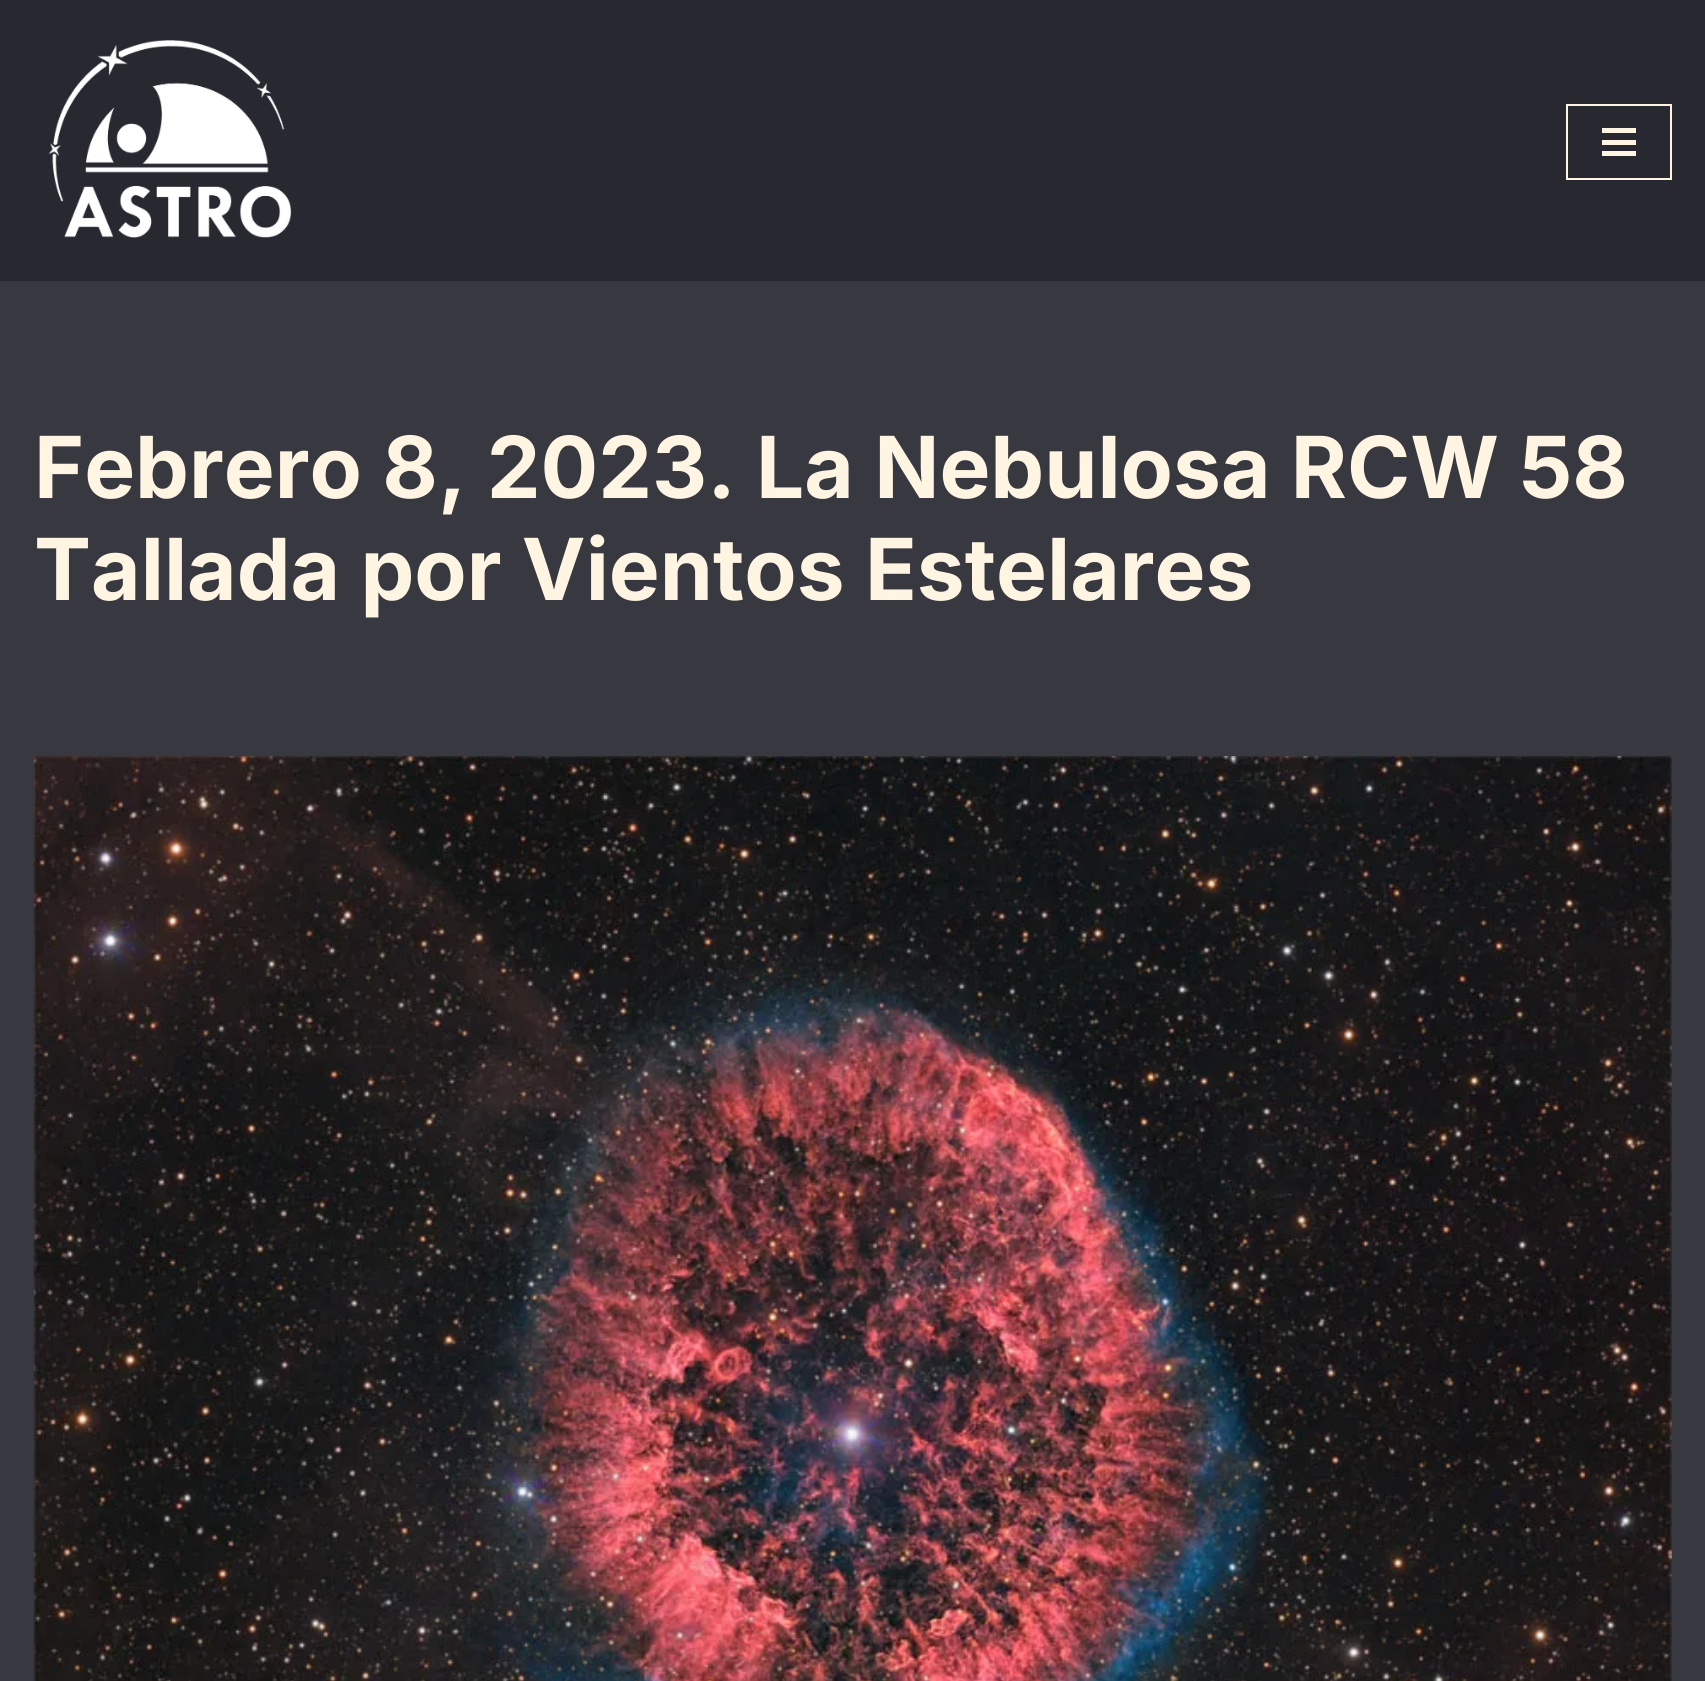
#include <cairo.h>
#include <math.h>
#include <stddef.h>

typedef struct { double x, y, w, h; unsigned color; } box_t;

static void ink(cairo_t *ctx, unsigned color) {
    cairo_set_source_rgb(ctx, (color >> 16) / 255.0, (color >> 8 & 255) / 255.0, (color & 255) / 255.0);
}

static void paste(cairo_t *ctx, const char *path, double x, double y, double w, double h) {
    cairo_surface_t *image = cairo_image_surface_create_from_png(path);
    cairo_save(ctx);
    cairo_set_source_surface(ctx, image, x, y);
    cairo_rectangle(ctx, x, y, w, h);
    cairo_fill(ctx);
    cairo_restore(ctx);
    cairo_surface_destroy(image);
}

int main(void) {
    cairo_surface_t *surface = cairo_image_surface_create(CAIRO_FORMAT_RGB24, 1705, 1681);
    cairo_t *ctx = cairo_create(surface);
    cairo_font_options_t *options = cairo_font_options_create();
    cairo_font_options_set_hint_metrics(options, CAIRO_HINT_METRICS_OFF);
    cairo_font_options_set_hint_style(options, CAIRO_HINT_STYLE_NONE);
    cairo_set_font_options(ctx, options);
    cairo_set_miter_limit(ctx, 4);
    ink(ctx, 0x383840);
    cairo_paint(ctx);
    ink(ctx, 0x282830);
    cairo_rectangle(ctx, 0, 0, 1705, 281);
    cairo_fill(ctx);
    paste(ctx, "media/1.png", 48, 40, 244, 198);
    cairo_rectangle(ctx, 1567, 105, 104, 74);
    ink(ctx, 0xFFF5E2);
    cairo_stroke(ctx);
    {
        static const box_t items[] = {
            {1602, 128, 34, 5, 0xFFF5E2},
            {1602, 140, 34, 5, 0xFFF5E2},
            {1602, 151, 34, 5, 0xFFF5E2},
        };
        for (size_t i = 0; i < sizeof items / sizeof *items; i++) {
            ink(ctx, items[i].color);
            cairo_rectangle(ctx, items[i].x, items[i].y, items[i].w, items[i].h);
            cairo_fill(ctx);
        }
    }
    cairo_select_font_face(ctx, "Inter", CAIRO_FONT_SLANT_NORMAL, CAIRO_FONT_WEIGHT_BOLD);
    cairo_set_font_size(ctx, 85.5);
    cairo_move_to(ctx, 34, 498);
    cairo_show_text(ctx, "Febrero 8, 2023. La Nebulosa RCW 58");
    cairo_move_to(ctx, 34, 600);
    cairo_show_text(ctx, "Tallada por Vientos Estelares");
    paste(ctx, "media/2.png", 33, 756, 1639, 925);
    cairo_surface_write_to_png(surface, "image.png");
    cairo_font_options_destroy(options);
    cairo_destroy(ctx);
    cairo_surface_destroy(surface);
    return 0;
}
